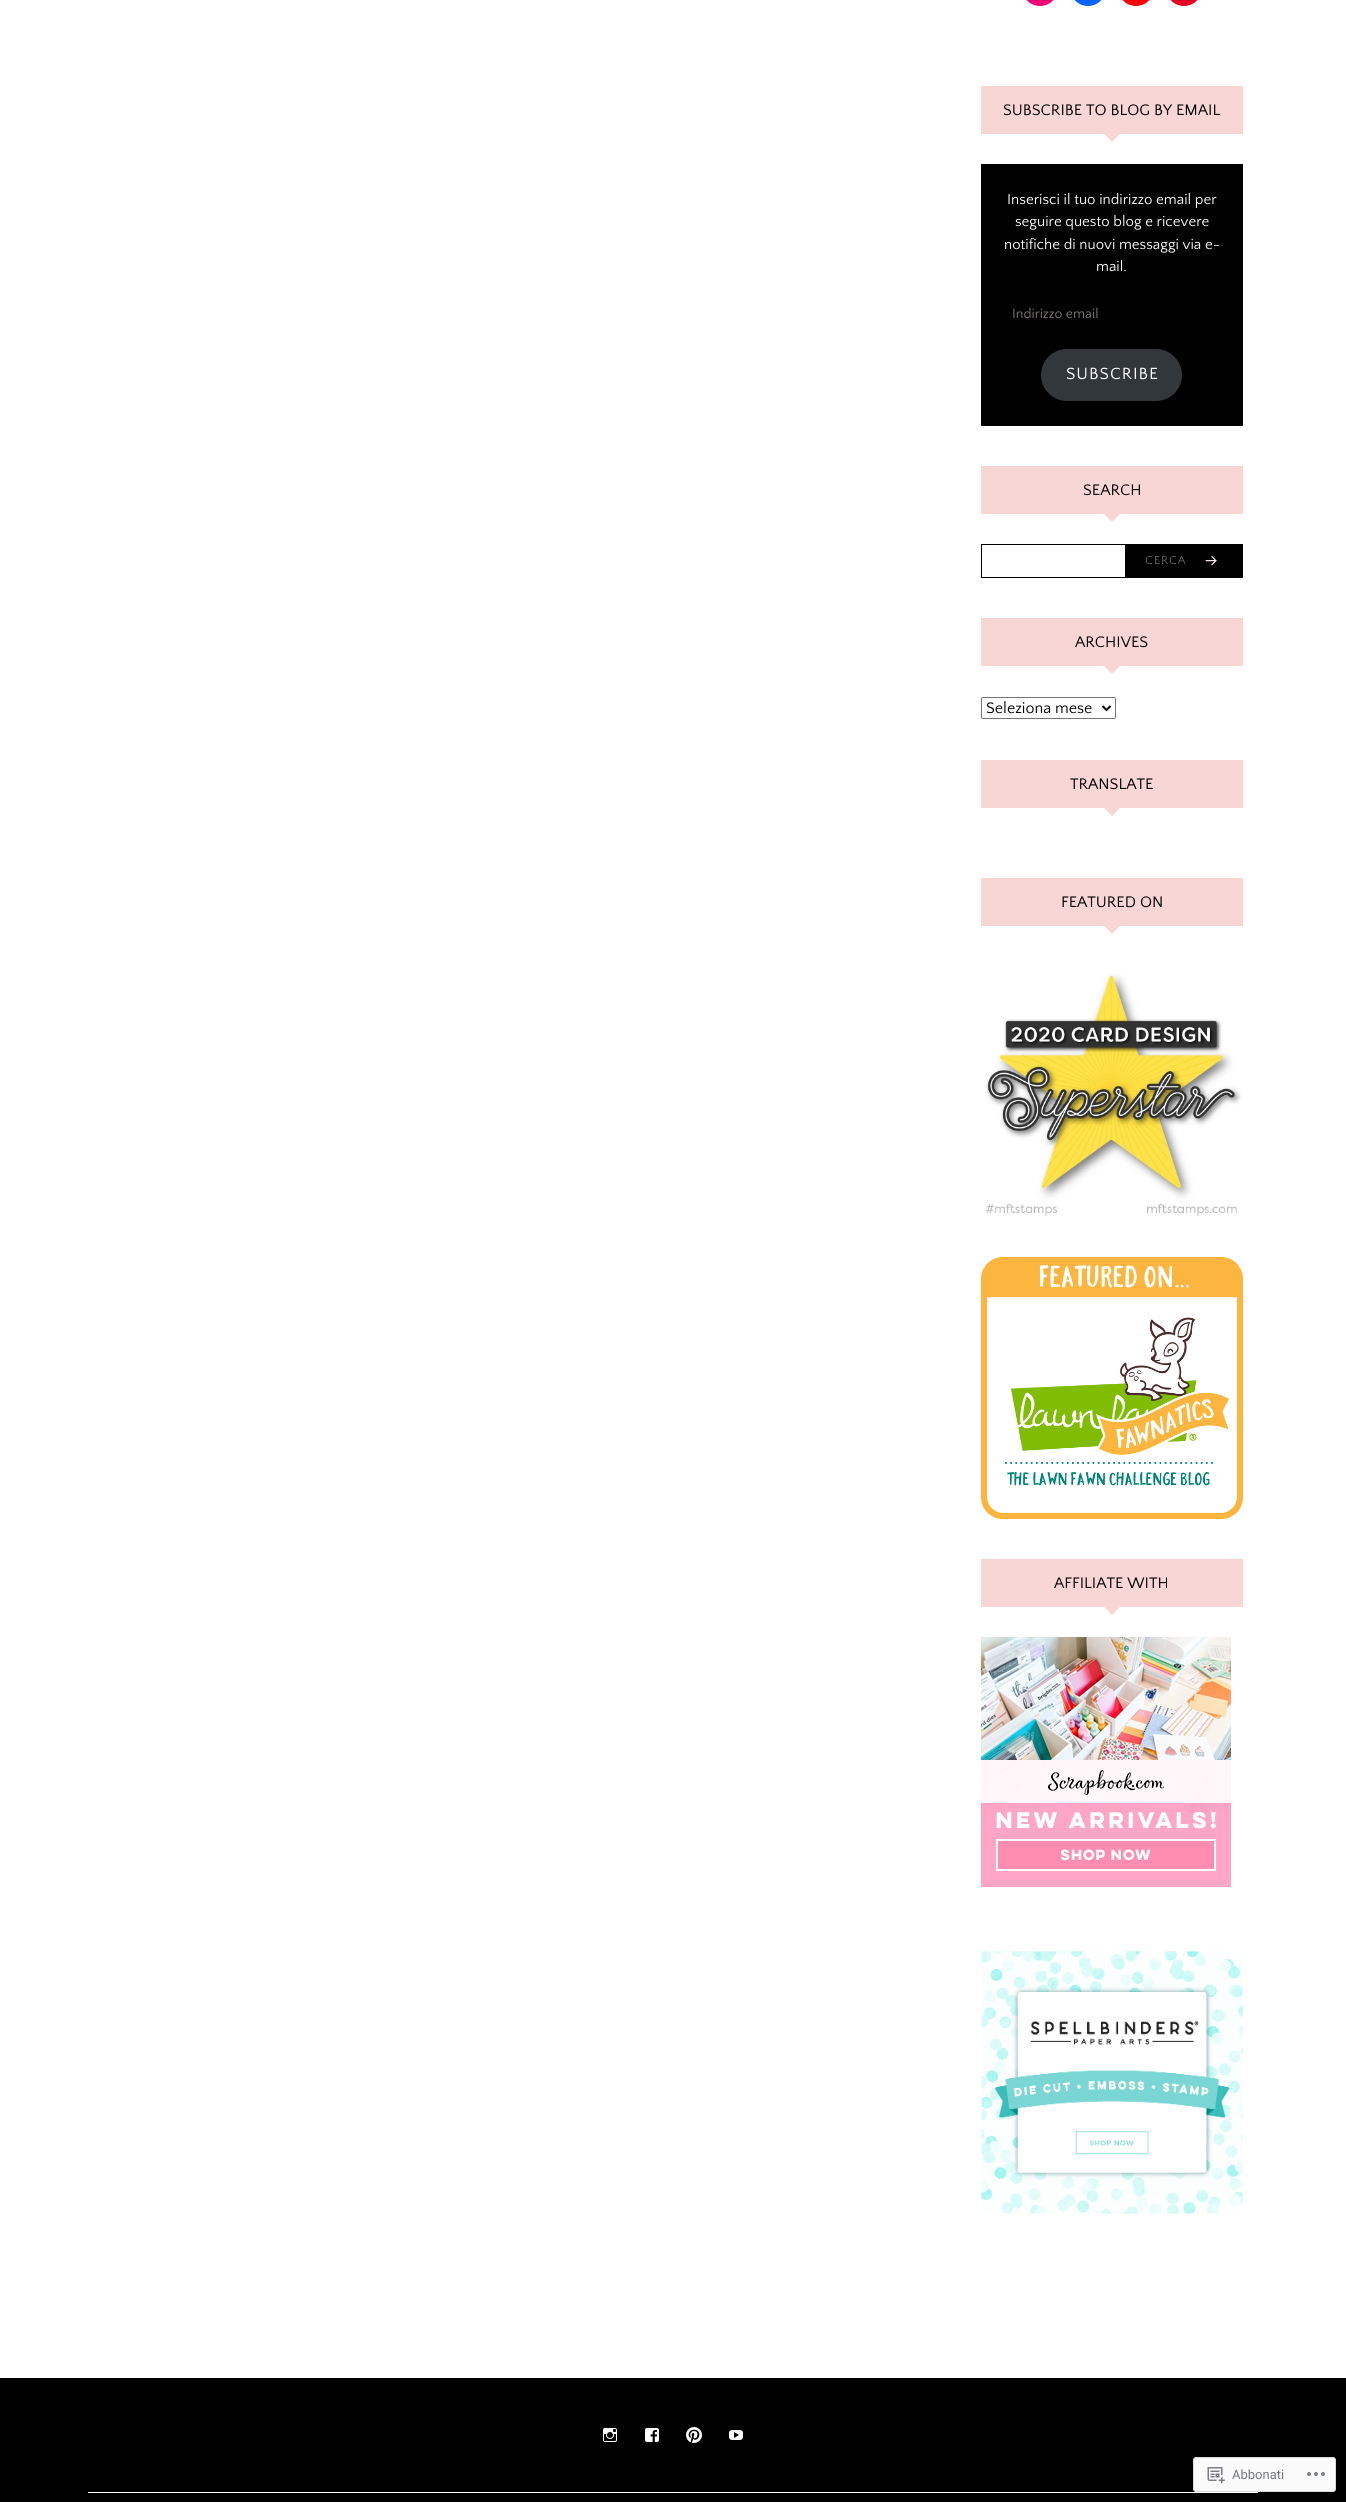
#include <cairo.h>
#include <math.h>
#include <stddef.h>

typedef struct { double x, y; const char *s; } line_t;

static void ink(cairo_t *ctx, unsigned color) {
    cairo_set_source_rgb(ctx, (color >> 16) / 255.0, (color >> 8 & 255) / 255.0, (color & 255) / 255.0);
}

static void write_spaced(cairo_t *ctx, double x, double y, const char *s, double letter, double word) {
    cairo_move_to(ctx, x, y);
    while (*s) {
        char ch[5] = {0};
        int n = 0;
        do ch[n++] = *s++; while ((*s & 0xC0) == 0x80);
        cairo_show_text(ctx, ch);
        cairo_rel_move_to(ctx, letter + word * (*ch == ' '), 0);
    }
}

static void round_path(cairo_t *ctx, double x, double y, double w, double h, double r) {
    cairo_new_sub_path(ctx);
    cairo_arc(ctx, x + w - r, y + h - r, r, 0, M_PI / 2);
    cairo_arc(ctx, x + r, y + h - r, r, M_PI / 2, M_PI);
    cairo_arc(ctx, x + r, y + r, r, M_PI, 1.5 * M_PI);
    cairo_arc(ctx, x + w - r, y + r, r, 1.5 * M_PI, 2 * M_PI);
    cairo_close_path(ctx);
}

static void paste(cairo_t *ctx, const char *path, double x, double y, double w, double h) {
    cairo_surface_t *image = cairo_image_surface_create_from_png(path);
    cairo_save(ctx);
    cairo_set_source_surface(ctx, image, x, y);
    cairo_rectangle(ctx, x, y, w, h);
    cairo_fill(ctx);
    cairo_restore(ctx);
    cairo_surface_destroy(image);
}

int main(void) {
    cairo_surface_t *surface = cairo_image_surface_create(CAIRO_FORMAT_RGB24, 1346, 2502);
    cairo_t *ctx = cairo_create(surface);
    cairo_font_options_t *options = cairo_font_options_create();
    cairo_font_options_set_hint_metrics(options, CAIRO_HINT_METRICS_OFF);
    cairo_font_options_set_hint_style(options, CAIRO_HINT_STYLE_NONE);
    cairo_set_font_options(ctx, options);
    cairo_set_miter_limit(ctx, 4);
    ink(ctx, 0xFFFFFF);
    cairo_paint(ctx);
    ink(ctx, 0xF00075);
    round_path(ctx, 1022, -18, 36, 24, 18);
    cairo_fill(ctx);
    ink(ctx, 0x0866FF);
    round_path(ctx, 1070, -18, 36, 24, 18);
    cairo_fill(ctx);
    ink(ctx, 0xFF0000);
    round_path(ctx, 1118, -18, 36, 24, 18);
    cairo_fill(ctx);
    ink(ctx, 0xE60122);
    round_path(ctx, 1166, -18, 36, 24, 18);
    cairo_fill(ctx);
    ink(ctx, 0xF9D6D6);
    cairo_rectangle(ctx, 981, 86, 262, 48);
    cairo_fill(ctx);
    cairo_select_font_face(ctx, "Quattrocento Sans", CAIRO_FONT_SLANT_NORMAL, CAIRO_FONT_WEIGHT_NORMAL);
    cairo_set_font_size(ctx, 16);
    ink(ctx, 0x000000);
    cairo_move_to(ctx, 1003, 115);
    cairo_show_text(ctx, "SUBSCRIBE TO BLOG BY EMAIL");
    ink(ctx, 0xF9D6D6);
    cairo_new_path(ctx);
    cairo_move_to(ctx, 1104, 134);
    cairo_line_to(ctx, 1120, 134);
    cairo_line_to(ctx, 1112, 142);
    cairo_close_path(ctx);
    cairo_fill(ctx);
    ink(ctx, 0x000000);
    cairo_rectangle(ctx, 981, 164, 262, 262);
    cairo_fill(ctx);
    cairo_set_font_size(ctx, 15);
    ink(ctx, 0xFFFFFF);
    {
        static const line_t items[] = {
            {1007, 204, "Inserisci il tuo indirizzo email per"},
            {1015, 226, "seguire questo blog e ricevere"},
            {1004, 249, "notifiche di nuovi messaggi via e-"},
            {1096, 271, "mail."},
        };
        for (size_t i = 0; i < sizeof items / sizeof *items; i++) {
            cairo_move_to(ctx, items[i].x, items[i].y);
            cairo_show_text(ctx, items[i].s);
        }
    }
    cairo_set_font_size(ctx, 14);
    ink(ctx, 0x7D7B6D);
    cairo_move_to(ctx, 1012, 318);
    cairo_show_text(ctx, "Indirizzo email");
    ink(ctx, 0x32373C);
    round_path(ctx, 1041, 349, 141, 52, 26);
    cairo_fill(ctx);
    cairo_set_font_size(ctx, 17);
    ink(ctx, 0xFFFFFF);
    write_spaced(ctx, 1066, 379, "SUBSCRIBE", 1, 0);
    ink(ctx, 0xF9D6D6);
    cairo_rectangle(ctx, 981, 466, 262, 48);
    cairo_fill(ctx);
    cairo_set_font_size(ctx, 16);
    ink(ctx, 0x000000);
    cairo_move_to(ctx, 1083, 495);
    cairo_show_text(ctx, "SEARCH");
    ink(ctx, 0xF9D6D6);
    cairo_new_path(ctx);
    cairo_move_to(ctx, 1104, 514);
    cairo_line_to(ctx, 1120, 514);
    cairo_line_to(ctx, 1112, 522);
    cairo_close_path(ctx);
    cairo_fill(ctx);
    cairo_rectangle(ctx, 981.5, 544.5, 261, 33);
    ink(ctx, 0x000000);
    cairo_set_line_width(ctx, 1);
    cairo_stroke(ctx);
    cairo_rectangle(ctx, 1125, 545, 117, 32);
    cairo_fill(ctx);
    cairo_set_font_size(ctx, 12);
    ink(ctx, 0x636363);
    write_spaced(ctx, 1145, 564, "CERCA", 1, 0);
    paste(ctx, "media/1.png", 1205, 556, 12, 10);
    ink(ctx, 0xF9D6D6);
    cairo_rectangle(ctx, 981, 618, 262, 48);
    cairo_fill(ctx);
    cairo_set_font_size(ctx, 16);
    ink(ctx, 0x000000);
    cairo_move_to(ctx, 1075, 647);
    cairo_show_text(ctx, "ARCHIVES");
    ink(ctx, 0xF9D6D6);
    cairo_new_path(ctx);
    cairo_move_to(ctx, 1104, 666);
    cairo_line_to(ctx, 1120, 666);
    cairo_line_to(ctx, 1112, 674);
    cairo_close_path(ctx);
    cairo_fill(ctx);
    round_path(ctx, 981.5, 697.5, 134, 21, 1.5);
    ink(ctx, 0x767676);
    cairo_stroke(ctx);
    cairo_new_path(ctx);
    cairo_move_to(ctx, 1102.5, 706);
    cairo_line_to(ctx, 1106.5, 710);
    cairo_line_to(ctx, 1110.5, 706);
    ink(ctx, 0x000000);
    cairo_set_line_width(ctx, 2);
    cairo_stroke(ctx);
    cairo_move_to(ctx, 986, 713);
    cairo_show_text(ctx, "Seleziona mese");
    ink(ctx, 0xF9D6D6);
    cairo_rectangle(ctx, 981, 760, 262, 48);
    cairo_fill(ctx);
    ink(ctx, 0x000000);
    cairo_move_to(ctx, 1070, 789);
    cairo_show_text(ctx, "TRANSLATE");
    ink(ctx, 0xF9D6D6);
    cairo_new_path(ctx);
    cairo_move_to(ctx, 1104, 808);
    cairo_line_to(ctx, 1120, 808);
    cairo_line_to(ctx, 1112, 816);
    cairo_close_path(ctx);
    cairo_fill(ctx);
    cairo_rectangle(ctx, 981, 878, 262, 48);
    cairo_fill(ctx);
    ink(ctx, 0x000000);
    cairo_move_to(ctx, 1061, 907);
    cairo_show_text(ctx, "FEATURED ON");
    ink(ctx, 0xF9D6D6);
    cairo_new_path(ctx);
    cairo_move_to(ctx, 1104, 926);
    cairo_line_to(ctx, 1120, 926);
    cairo_line_to(ctx, 1112, 934);
    cairo_close_path(ctx);
    cairo_fill(ctx);
    paste(ctx, "media/2.png", 985, 973, 257, 243);
    paste(ctx, "media/3.png", 981, 1257, 262, 262);
    cairo_rectangle(ctx, 981, 1559, 262, 48);
    cairo_fill(ctx);
    ink(ctx, 0x000000);
    cairo_move_to(ctx, 1054, 1588);
    cairo_show_text(ctx, "AFFILIATE WITH");
    ink(ctx, 0xF9D6D6);
    cairo_new_path(ctx);
    cairo_move_to(ctx, 1104, 1607);
    cairo_line_to(ctx, 1120, 1607);
    cairo_line_to(ctx, 1112, 1615);
    cairo_close_path(ctx);
    cairo_fill(ctx);
    paste(ctx, "media/4.png", 981, 1637, 250, 250);
    paste(ctx, "media/5.png", 981, 1951, 262, 263);
    ink(ctx, 0x000000);
    cairo_rectangle(ctx, 0, 2378, 1346, 124);
    cairo_fill(ctx);
    ink(ctx, 0xFFFFFF);
    cairo_rectangle(ctx, 88, 2492, 1170, 1);
    cairo_fill(ctx);
    paste(ctx, "media/6.png", 603, 2428, 14, 14);
    paste(ctx, "media/7.png", 645, 2428, 14, 14);
    paste(ctx, "media/8.png", 686, 2427, 16, 16);
    paste(ctx, "media/9.png", 729, 2430, 14, 10);
    ink(ctx, 0xFAFAFA);
    round_path(ctx, 1193.5, 2457.5, 142, 34, 2.5);
    cairo_fill_preserve(ctx);
    ink(ctx, 0xD8D8DA);
    cairo_set_line_width(ctx, 1);
    cairo_stroke(ctx);
    paste(ctx, "media/10.png", 1207, 2467, 18, 17);
    cairo_select_font_face(ctx, "Roboto", CAIRO_FONT_SLANT_NORMAL, CAIRO_FONT_WEIGHT_NORMAL);
    cairo_set_font_size(ctx, 13);
    ink(ctx, 0x767A7F);
    cairo_move_to(ctx, 1232, 2479);
    cairo_show_text(ctx, "Abbonati");
    paste(ctx, "media/11.png", 1307, 2472, 18, 4);
    cairo_surface_write_to_png(surface, "image.png");
    cairo_font_options_destroy(options);
    cairo_destroy(ctx);
    cairo_surface_destroy(surface);
    return 0;
}
